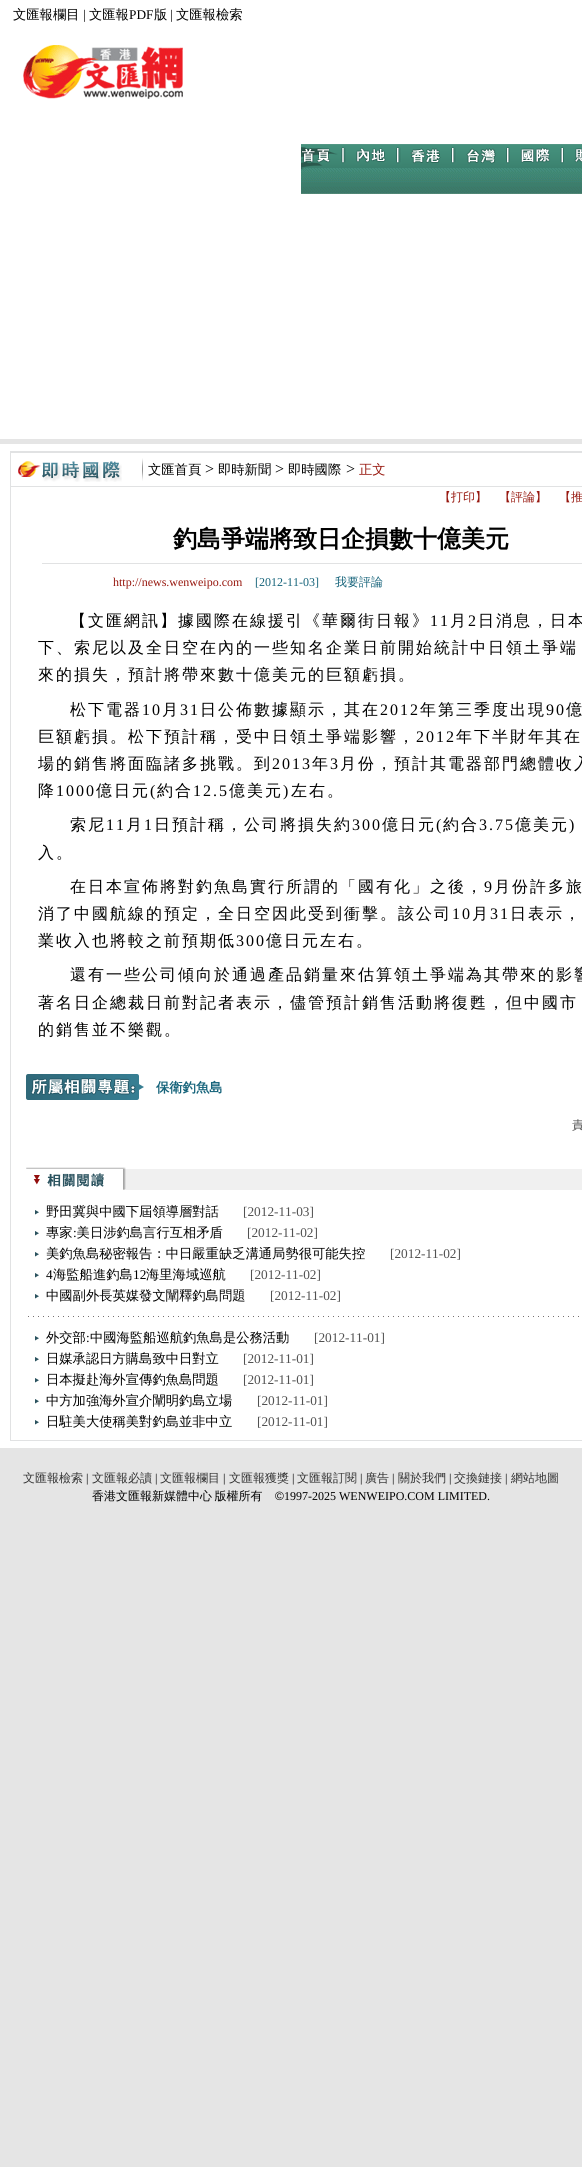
#include <cairo.h>
#include <math.h>
#include <stddef.h>

typedef struct { double x, y; const char *s; } line_t;

static void ink(cairo_t *ctx, unsigned color) {
    cairo_set_source_rgb(ctx, (color >> 16) / 255.0, (color >> 8 & 255) / 255.0, (color & 255) / 255.0);
}

static void write_spaced(cairo_t *ctx, double x, double y, const char *s, double letter, double word) {
    cairo_move_to(ctx, x, y);
    while (*s) {
        char ch[5] = {0};
        int n = 0;
        do ch[n++] = *s++; while ((*s & 0xC0) == 0x80);
        cairo_show_text(ctx, ch);
        cairo_rel_move_to(ctx, letter + word * (*ch == ' '), 0);
    }
}

static void paste(cairo_t *ctx, const char *path, double x, double y, double w, double h) {
    cairo_surface_t *image = cairo_image_surface_create_from_png(path);
    cairo_save(ctx);
    cairo_set_source_surface(ctx, image, x, y);
    cairo_rectangle(ctx, x, y, w, h);
    cairo_fill(ctx);
    cairo_restore(ctx);
    cairo_surface_destroy(image);
}

int main(void) {
    cairo_surface_t *surface = cairo_image_surface_create(CAIRO_FORMAT_RGB24, 582, 2167);
    cairo_t *ctx = cairo_create(surface);
    cairo_font_options_t *options = cairo_font_options_create();
    cairo_font_options_set_hint_metrics(options, CAIRO_HINT_METRICS_OFF);
    cairo_font_options_set_hint_style(options, CAIRO_HINT_STYLE_NONE);
    cairo_set_font_options(ctx, options);
    cairo_set_miter_limit(ctx, 4);
    ink(ctx, 0xE5E5E5);
    cairo_paint(ctx);
    ink(ctx, 0xFFFFFF);
    cairo_rectangle(ctx, 0, 0, 582, 439);
    cairo_fill(ctx);
    cairo_select_font_face(ctx, "WenQuanYi Zen Hei Medium", CAIRO_FONT_SLANT_NORMAL, CAIRO_FONT_WEIGHT_NORMAL);
    cairo_set_font_size(ctx, 13.3);
    ink(ctx, 0x000000);
    cairo_move_to(ctx, 13, 19);
    cairo_show_text(ctx, "文匯報欄目");
    cairo_select_font_face(ctx, "Liberation Serif", CAIRO_FONT_SLANT_NORMAL, CAIRO_FONT_WEIGHT_NORMAL);
    cairo_move_to(ctx, 83, 19);
    cairo_show_text(ctx, "|");
    cairo_select_font_face(ctx, "WenQuanYi Zen Hei Medium", CAIRO_FONT_SLANT_NORMAL, CAIRO_FONT_WEIGHT_NORMAL);
    cairo_move_to(ctx, 89, 19);
    cairo_show_text(ctx, "文匯報");
    cairo_select_font_face(ctx, "Liberation Serif", CAIRO_FONT_SLANT_NORMAL, CAIRO_FONT_WEIGHT_NORMAL);
    cairo_move_to(ctx, 129, 19);
    cairo_show_text(ctx, "PDF");
    cairo_select_font_face(ctx, "WenQuanYi Zen Hei Medium", CAIRO_FONT_SLANT_NORMAL, CAIRO_FONT_WEIGHT_NORMAL);
    cairo_move_to(ctx, 154, 19);
    cairo_show_text(ctx, "版");
    cairo_select_font_face(ctx, "Liberation Serif", CAIRO_FONT_SLANT_NORMAL, CAIRO_FONT_WEIGHT_NORMAL);
    cairo_move_to(ctx, 170, 19);
    cairo_show_text(ctx, "|");
    cairo_select_font_face(ctx, "WenQuanYi Zen Hei Medium", CAIRO_FONT_SLANT_NORMAL, CAIRO_FONT_WEIGHT_NORMAL);
    cairo_move_to(ctx, 176, 19);
    cairo_show_text(ctx, "文匯報檢索");
    paste(ctx, "media/1.png", 23, 45, 160, 54);
    paste(ctx, "media/2.png", 301, 144, 44, 24);
    paste(ctx, "media/3.png", 345, 144, 55, 24);
    paste(ctx, "media/4.png", 400, 144, 55, 24);
    paste(ctx, "media/5.png", 455, 144, 55, 24);
    paste(ctx, "media/6.png", 510, 144, 54, 24);
    paste(ctx, "media/7.png", 564, 144, 18, 24);
    paste(ctx, "media/8.png", 301, 168, 281, 26);
    ink(ctx, 0xFFFFFF);
    cairo_rectangle(ctx, 0, 444, 582, 1004);
    cairo_fill(ctx);
    cairo_rectangle(ctx, 10.5, 451.5, 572, 989);
    ink(ctx, 0xE1E2E3);
    cairo_set_line_width(ctx, 1);
    cairo_stroke(ctx);
    cairo_rectangle(ctx, 11, 452, 571, 1);
    cairo_fill(ctx);
    cairo_rectangle(ctx, 11, 486, 571, 1);
    cairo_fill(ctx);
    paste(ctx, "media/9.png", 18, 461, 23, 16);
    paste(ctx, "media/10.png", 42, 461, 80, 21);
    paste(ctx, "media/11.png", 142, 458, 1, 23);
    ink(ctx, 0x000000);
    cairo_move_to(ctx, 148, 474);
    cairo_show_text(ctx, "文匯首頁");
    cairo_select_font_face(ctx, "Liberation Serif", CAIRO_FONT_SLANT_NORMAL, CAIRO_FONT_WEIGHT_NORMAL);
    cairo_set_font_size(ctx, 16);
    cairo_move_to(ctx, 205, 474);
    cairo_show_text(ctx, ">");
    cairo_select_font_face(ctx, "WenQuanYi Zen Hei Medium", CAIRO_FONT_SLANT_NORMAL, CAIRO_FONT_WEIGHT_NORMAL);
    cairo_set_font_size(ctx, 13.3);
    cairo_move_to(ctx, 218, 474);
    cairo_show_text(ctx, "即時新聞");
    cairo_select_font_face(ctx, "Liberation Serif", CAIRO_FONT_SLANT_NORMAL, CAIRO_FONT_WEIGHT_NORMAL);
    cairo_set_font_size(ctx, 16);
    cairo_move_to(ctx, 275, 474);
    cairo_show_text(ctx, ">");
    cairo_select_font_face(ctx, "WenQuanYi Zen Hei Medium", CAIRO_FONT_SLANT_NORMAL, CAIRO_FONT_WEIGHT_NORMAL);
    cairo_set_font_size(ctx, 13.3);
    cairo_move_to(ctx, 288, 474);
    cairo_show_text(ctx, "即時國際");
    cairo_select_font_face(ctx, "Liberation Serif", CAIRO_FONT_SLANT_NORMAL, CAIRO_FONT_WEIGHT_NORMAL);
    cairo_set_font_size(ctx, 16);
    cairo_move_to(ctx, 346, 474);
    cairo_show_text(ctx, ">");
    cairo_select_font_face(ctx, "WenQuanYi Zen Hei Medium", CAIRO_FONT_SLANT_NORMAL, CAIRO_FONT_WEIGHT_NORMAL);
    cairo_set_font_size(ctx, 13.3);
    ink(ctx, 0x97170E);
    cairo_move_to(ctx, 359, 474);
    cairo_show_text(ctx, "正文");
    cairo_set_font_size(ctx, 12);
    {
        static const line_t items[] = {
            {439, 501, "【打印】"},
            {499, 501, "【評論】"},
            {559, 501, "【推"},
        };
        for (size_t i = 0; i < sizeof items / sizeof *items; i++) {
            cairo_move_to(ctx, items[i].x, items[i].y);
            cairo_show_text(ctx, items[i].s);
        }
    }
    cairo_select_font_face(ctx, "WenQuanYi Zen Hei", CAIRO_FONT_SLANT_NORMAL, CAIRO_FONT_WEIGHT_BOLD);
    cairo_set_font_size(ctx, 24);
    ink(ctx, 0x000000);
    cairo_move_to(ctx, 173, 547);
    cairo_show_text(ctx, "釣島爭端將致日企損數十億美元");
    ink(ctx, 0xE1E2E3);
    cairo_rectangle(ctx, 42, 563, 540, 1);
    cairo_fill(ctx);
    cairo_select_font_face(ctx, "Liberation Serif", CAIRO_FONT_SLANT_NORMAL, CAIRO_FONT_WEIGHT_NORMAL);
    cairo_set_font_size(ctx, 12);
    ink(ctx, 0x97170E);
    cairo_move_to(ctx, 113, 586);
    cairo_show_text(ctx, "http://news.wenweipo.com");
    ink(ctx, 0x15637A);
    cairo_move_to(ctx, 255, 586);
    cairo_show_text(ctx, "[2012-11-03]");
    cairo_select_font_face(ctx, "WenQuanYi Zen Hei Medium", CAIRO_FONT_SLANT_NORMAL, CAIRO_FONT_WEIGHT_NORMAL);
    cairo_move_to(ctx, 335, 586);
    cairo_show_text(ctx, "我要評論");
    cairo_set_font_size(ctx, 16);
    ink(ctx, 0x000000);
    write_spaced(ctx, 70, 626, "【文匯網訊】據國際在線援引《華爾街日報》", 2, 0);
    cairo_select_font_face(ctx, "Liberation Serif", CAIRO_FONT_SLANT_NORMAL, CAIRO_FONT_WEIGHT_NORMAL);
    write_spaced(ctx, 430, 626, "11", 2, 0);
    cairo_select_font_face(ctx, "WenQuanYi Zen Hei Medium", CAIRO_FONT_SLANT_NORMAL, CAIRO_FONT_WEIGHT_NORMAL);
    write_spaced(ctx, 450, 626, "月", 2, 0);
    cairo_select_font_face(ctx, "Liberation Serif", CAIRO_FONT_SLANT_NORMAL, CAIRO_FONT_WEIGHT_NORMAL);
    write_spaced(ctx, 468, 626, "2", 2, 0);
    cairo_select_font_face(ctx, "WenQuanYi Zen Hei Medium", CAIRO_FONT_SLANT_NORMAL, CAIRO_FONT_WEIGHT_NORMAL);
    {
        static const line_t items[] = {
            {478, 626, "日消息，日本"},
            {38, 653, "下、索尼以及全日空在內的一些知名企業日前開始統計中日領土爭端"},
            {38, 680, "來的損失，預計將帶來數十億美元的巨額虧損。"},
            {70, 715, "松下電器"},
        };
        for (size_t i = 0; i < sizeof items / sizeof *items; i++) {
            write_spaced(ctx, items[i].x, items[i].y, items[i].s, 2, 0);
        }
    }
    cairo_select_font_face(ctx, "Liberation Serif", CAIRO_FONT_SLANT_NORMAL, CAIRO_FONT_WEIGHT_NORMAL);
    write_spaced(ctx, 142, 715, "10", 2, 0);
    cairo_select_font_face(ctx, "WenQuanYi Zen Hei Medium", CAIRO_FONT_SLANT_NORMAL, CAIRO_FONT_WEIGHT_NORMAL);
    write_spaced(ctx, 162, 715, "月", 2, 0);
    cairo_select_font_face(ctx, "Liberation Serif", CAIRO_FONT_SLANT_NORMAL, CAIRO_FONT_WEIGHT_NORMAL);
    write_spaced(ctx, 180, 715, "31", 2, 0);
    cairo_select_font_face(ctx, "WenQuanYi Zen Hei Medium", CAIRO_FONT_SLANT_NORMAL, CAIRO_FONT_WEIGHT_NORMAL);
    write_spaced(ctx, 200, 715, "日公佈數據顯示，其在", 2, 0);
    cairo_select_font_face(ctx, "Liberation Serif", CAIRO_FONT_SLANT_NORMAL, CAIRO_FONT_WEIGHT_NORMAL);
    write_spaced(ctx, 380, 715, "2012", 2, 0);
    cairo_select_font_face(ctx, "WenQuanYi Zen Hei Medium", CAIRO_FONT_SLANT_NORMAL, CAIRO_FONT_WEIGHT_NORMAL);
    write_spaced(ctx, 420, 715, "年第三季度出現", 2, 0);
    cairo_select_font_face(ctx, "Liberation Serif", CAIRO_FONT_SLANT_NORMAL, CAIRO_FONT_WEIGHT_NORMAL);
    write_spaced(ctx, 546, 715, "90", 2, 0);
    cairo_select_font_face(ctx, "WenQuanYi Zen Hei Medium", CAIRO_FONT_SLANT_NORMAL, CAIRO_FONT_WEIGHT_NORMAL);
    write_spaced(ctx, 566, 715, "億", 2, 0);
    write_spaced(ctx, 38, 742, "巨額虧損。松下預計稱，受中日領土爭端影響，", 2, 0);
    cairo_select_font_face(ctx, "Liberation Serif", CAIRO_FONT_SLANT_NORMAL, CAIRO_FONT_WEIGHT_NORMAL);
    write_spaced(ctx, 416, 742, "2012", 2, 0);
    cairo_select_font_face(ctx, "WenQuanYi Zen Hei Medium", CAIRO_FONT_SLANT_NORMAL, CAIRO_FONT_WEIGHT_NORMAL);
    write_spaced(ctx, 456, 742, "年下半財年其在", 2, 0);
    write_spaced(ctx, 38, 769, "場的銷售將面臨諸多挑戰。到", 2, 0);
    cairo_select_font_face(ctx, "Liberation Serif", CAIRO_FONT_SLANT_NORMAL, CAIRO_FONT_WEIGHT_NORMAL);
    write_spaced(ctx, 272, 769, "2013", 2, 0);
    cairo_select_font_face(ctx, "WenQuanYi Zen Hei Medium", CAIRO_FONT_SLANT_NORMAL, CAIRO_FONT_WEIGHT_NORMAL);
    write_spaced(ctx, 312, 769, "年", 2, 0);
    cairo_select_font_face(ctx, "Liberation Serif", CAIRO_FONT_SLANT_NORMAL, CAIRO_FONT_WEIGHT_NORMAL);
    write_spaced(ctx, 330, 769, "3", 2, 0);
    cairo_select_font_face(ctx, "WenQuanYi Zen Hei Medium", CAIRO_FONT_SLANT_NORMAL, CAIRO_FONT_WEIGHT_NORMAL);
    write_spaced(ctx, 340, 769, "月份，預計其電器部門總體收入", 2, 0);
    write_spaced(ctx, 38, 796, "降", 2, 0);
    cairo_select_font_face(ctx, "Liberation Serif", CAIRO_FONT_SLANT_NORMAL, CAIRO_FONT_WEIGHT_NORMAL);
    write_spaced(ctx, 56, 796, "1000", 2, 0);
    cairo_select_font_face(ctx, "WenQuanYi Zen Hei Medium", CAIRO_FONT_SLANT_NORMAL, CAIRO_FONT_WEIGHT_NORMAL);
    write_spaced(ctx, 96, 796, "億日元", 2, 0);
    cairo_select_font_face(ctx, "Liberation Serif", CAIRO_FONT_SLANT_NORMAL, CAIRO_FONT_WEIGHT_NORMAL);
    write_spaced(ctx, 150, 796, "(", 2, 0);
    cairo_select_font_face(ctx, "WenQuanYi Zen Hei Medium", CAIRO_FONT_SLANT_NORMAL, CAIRO_FONT_WEIGHT_NORMAL);
    write_spaced(ctx, 157, 796, "約合", 2, 0);
    cairo_select_font_face(ctx, "Liberation Serif", CAIRO_FONT_SLANT_NORMAL, CAIRO_FONT_WEIGHT_NORMAL);
    write_spaced(ctx, 193, 796, "12.5", 2, 0);
    cairo_select_font_face(ctx, "WenQuanYi Zen Hei Medium", CAIRO_FONT_SLANT_NORMAL, CAIRO_FONT_WEIGHT_NORMAL);
    write_spaced(ctx, 229, 796, "億美元", 2, 0);
    cairo_select_font_face(ctx, "Liberation Serif", CAIRO_FONT_SLANT_NORMAL, CAIRO_FONT_WEIGHT_NORMAL);
    write_spaced(ctx, 283, 796, ")", 2, 0);
    cairo_select_font_face(ctx, "WenQuanYi Zen Hei Medium", CAIRO_FONT_SLANT_NORMAL, CAIRO_FONT_WEIGHT_NORMAL);
    write_spaced(ctx, 291, 796, "左右。", 2, 0);
    write_spaced(ctx, 70, 830, "索尼", 2, 0);
    cairo_select_font_face(ctx, "Liberation Serif", CAIRO_FONT_SLANT_NORMAL, CAIRO_FONT_WEIGHT_NORMAL);
    write_spaced(ctx, 106, 830, "11", 2, 0);
    cairo_select_font_face(ctx, "WenQuanYi Zen Hei Medium", CAIRO_FONT_SLANT_NORMAL, CAIRO_FONT_WEIGHT_NORMAL);
    write_spaced(ctx, 126, 830, "月", 2, 0);
    cairo_select_font_face(ctx, "Liberation Serif", CAIRO_FONT_SLANT_NORMAL, CAIRO_FONT_WEIGHT_NORMAL);
    write_spaced(ctx, 144, 830, "1", 2, 0);
    cairo_select_font_face(ctx, "WenQuanYi Zen Hei Medium", CAIRO_FONT_SLANT_NORMAL, CAIRO_FONT_WEIGHT_NORMAL);
    write_spaced(ctx, 154, 830, "日預計稱，公司將損失約", 2, 0);
    cairo_select_font_face(ctx, "Liberation Serif", CAIRO_FONT_SLANT_NORMAL, CAIRO_FONT_WEIGHT_NORMAL);
    write_spaced(ctx, 352, 830, "300", 2, 0);
    cairo_select_font_face(ctx, "WenQuanYi Zen Hei Medium", CAIRO_FONT_SLANT_NORMAL, CAIRO_FONT_WEIGHT_NORMAL);
    write_spaced(ctx, 382, 830, "億日元", 2, 0);
    cairo_select_font_face(ctx, "Liberation Serif", CAIRO_FONT_SLANT_NORMAL, CAIRO_FONT_WEIGHT_NORMAL);
    write_spaced(ctx, 436, 830, "(", 2, 0);
    cairo_select_font_face(ctx, "WenQuanYi Zen Hei Medium", CAIRO_FONT_SLANT_NORMAL, CAIRO_FONT_WEIGHT_NORMAL);
    write_spaced(ctx, 443, 830, "約合", 2, 0);
    cairo_select_font_face(ctx, "Liberation Serif", CAIRO_FONT_SLANT_NORMAL, CAIRO_FONT_WEIGHT_NORMAL);
    write_spaced(ctx, 479, 830, "3.75", 2, 0);
    cairo_select_font_face(ctx, "WenQuanYi Zen Hei Medium", CAIRO_FONT_SLANT_NORMAL, CAIRO_FONT_WEIGHT_NORMAL);
    write_spaced(ctx, 515, 830, "億美元", 2, 0);
    cairo_select_font_face(ctx, "Liberation Serif", CAIRO_FONT_SLANT_NORMAL, CAIRO_FONT_WEIGHT_NORMAL);
    write_spaced(ctx, 569, 830, ")", 2, 0);
    cairo_select_font_face(ctx, "WenQuanYi Zen Hei Medium", CAIRO_FONT_SLANT_NORMAL, CAIRO_FONT_WEIGHT_NORMAL);
    write_spaced(ctx, 38, 858, "入。", 2, 0);
    write_spaced(ctx, 70, 892, "在日本宣佈將對釣魚島實行所謂的「國有化」之後，", 2, 0);
    cairo_select_font_face(ctx, "Liberation Serif", CAIRO_FONT_SLANT_NORMAL, CAIRO_FONT_WEIGHT_NORMAL);
    write_spaced(ctx, 484, 892, "9", 2, 0);
    cairo_select_font_face(ctx, "WenQuanYi Zen Hei Medium", CAIRO_FONT_SLANT_NORMAL, CAIRO_FONT_WEIGHT_NORMAL);
    write_spaced(ctx, 494, 892, "月份許多旅", 2, 0);
    write_spaced(ctx, 38, 919, "消了中國航線的預定，全日空因此受到衝擊。該公司", 2, 0);
    cairo_select_font_face(ctx, "Liberation Serif", CAIRO_FONT_SLANT_NORMAL, CAIRO_FONT_WEIGHT_NORMAL);
    write_spaced(ctx, 452, 919, "10", 2, 0);
    cairo_select_font_face(ctx, "WenQuanYi Zen Hei Medium", CAIRO_FONT_SLANT_NORMAL, CAIRO_FONT_WEIGHT_NORMAL);
    write_spaced(ctx, 472, 919, "月", 2, 0);
    cairo_select_font_face(ctx, "Liberation Serif", CAIRO_FONT_SLANT_NORMAL, CAIRO_FONT_WEIGHT_NORMAL);
    write_spaced(ctx, 490, 919, "31", 2, 0);
    cairo_select_font_face(ctx, "WenQuanYi Zen Hei Medium", CAIRO_FONT_SLANT_NORMAL, CAIRO_FONT_WEIGHT_NORMAL);
    write_spaced(ctx, 510, 919, "日表示，", 2, 0);
    write_spaced(ctx, 38, 946, "業收入也將較之前預期低", 2, 0);
    cairo_select_font_face(ctx, "Liberation Serif", CAIRO_FONT_SLANT_NORMAL, CAIRO_FONT_WEIGHT_NORMAL);
    write_spaced(ctx, 236, 946, "300", 2, 0);
    cairo_select_font_face(ctx, "WenQuanYi Zen Hei Medium", CAIRO_FONT_SLANT_NORMAL, CAIRO_FONT_WEIGHT_NORMAL);
    {
        static const line_t items[] = {
            {266, 946, "億日元左右。"},
            {70, 980, "還有一些公司傾向於通過產品銷量來估算領土爭端為其帶來的影響"},
            {38, 1008, "著名日企總裁日前對記者表示，儘管預計銷售活動將復甦，但中國市"},
            {38, 1035, "的銷售並不樂觀。"},
        };
        for (size_t i = 0; i < sizeof items / sizeof *items; i++) {
            write_spaced(ctx, items[i].x, items[i].y, items[i].s, 2, 0);
        }
    }
    paste(ctx, "media/12.png", 26, 1074, 118, 26);
    cairo_select_font_face(ctx, "WenQuanYi Zen Hei", CAIRO_FONT_SLANT_NORMAL, CAIRO_FONT_WEIGHT_BOLD);
    cairo_set_font_size(ctx, 13.3);
    ink(ctx, 0x15637A);
    cairo_move_to(ctx, 156, 1092);
    cairo_show_text(ctx, "保衛釣魚島");
    cairo_select_font_face(ctx, "WenQuanYi Zen Hei Medium", CAIRO_FONT_SLANT_NORMAL, CAIRO_FONT_WEIGHT_NORMAL);
    cairo_set_font_size(ctx, 12);
    ink(ctx, 0x515151);
    cairo_move_to(ctx, 572, 1129);
    cairo_show_text(ctx, "責");
    paste(ctx, "media/13.png", 26, 1167, 100, 23);
    ink(ctx, 0xF0F0F0);
    cairo_rectangle(ctx, 126, 1169, 456, 21);
    cairo_fill(ctx);
    paste(ctx, "media/14.png", 35, 1210, 4, 5);
    cairo_set_font_size(ctx, 13.3);
    ink(ctx, 0x000000);
    cairo_move_to(ctx, 46, 1216);
    cairo_show_text(ctx, "野田冀與中國下屆領導層對話");
    cairo_select_font_face(ctx, "Liberation Serif", CAIRO_FONT_SLANT_NORMAL, CAIRO_FONT_WEIGHT_NORMAL);
    ink(ctx, 0x515151);
    cairo_move_to(ctx, 243, 1216);
    cairo_show_text(ctx, "[2012-11-03]");
    paste(ctx, "media/14.png", 35, 1231, 4, 5);
    cairo_select_font_face(ctx, "WenQuanYi Zen Hei Medium", CAIRO_FONT_SLANT_NORMAL, CAIRO_FONT_WEIGHT_NORMAL);
    ink(ctx, 0x000000);
    cairo_move_to(ctx, 46, 1237);
    cairo_show_text(ctx, "專家 美日涉釣島言行互相矛盾");
    cairo_select_font_face(ctx, "Liberation Serif", CAIRO_FONT_SLANT_NORMAL, CAIRO_FONT_WEIGHT_NORMAL);
    ink(ctx, 0x515151);
    cairo_move_to(ctx, 247, 1237);
    cairo_show_text(ctx, "[2012-11-02]");
    ink(ctx, 0x000000);
    cairo_move_to(ctx, 73, 1237);
    cairo_show_text(ctx, ":");
    paste(ctx, "media/14.png", 35, 1252, 4, 5);
    cairo_select_font_face(ctx, "WenQuanYi Zen Hei Medium", CAIRO_FONT_SLANT_NORMAL, CAIRO_FONT_WEIGHT_NORMAL);
    cairo_move_to(ctx, 46, 1258);
    cairo_show_text(ctx, "美釣魚島秘密報告：中日嚴重缺乏溝通局勢很可能失控");
    cairo_select_font_face(ctx, "Liberation Serif", CAIRO_FONT_SLANT_NORMAL, CAIRO_FONT_WEIGHT_NORMAL);
    ink(ctx, 0x515151);
    cairo_move_to(ctx, 390, 1258);
    cairo_show_text(ctx, "[2012-11-02]");
    paste(ctx, "media/14.png", 35, 1273, 4, 5);
    ink(ctx, 0x000000);
    cairo_move_to(ctx, 46, 1279);
    cairo_show_text(ctx, "4");
    cairo_select_font_face(ctx, "WenQuanYi Zen Hei Medium", CAIRO_FONT_SLANT_NORMAL, CAIRO_FONT_WEIGHT_NORMAL);
    cairo_move_to(ctx, 53, 1279);
    cairo_show_text(ctx, "海監船進釣島");
    cairo_select_font_face(ctx, "Liberation Serif", CAIRO_FONT_SLANT_NORMAL, CAIRO_FONT_WEIGHT_NORMAL);
    cairo_move_to(ctx, 133, 1279);
    cairo_show_text(ctx, "12");
    cairo_select_font_face(ctx, "WenQuanYi Zen Hei Medium", CAIRO_FONT_SLANT_NORMAL, CAIRO_FONT_WEIGHT_NORMAL);
    cairo_move_to(ctx, 146, 1279);
    cairo_show_text(ctx, "海里海域巡航");
    cairo_select_font_face(ctx, "Liberation Serif", CAIRO_FONT_SLANT_NORMAL, CAIRO_FONT_WEIGHT_NORMAL);
    ink(ctx, 0x515151);
    cairo_move_to(ctx, 250, 1279);
    cairo_show_text(ctx, "[2012-11-02]");
    paste(ctx, "media/14.png", 35, 1294, 4, 5);
    cairo_select_font_face(ctx, "WenQuanYi Zen Hei Medium", CAIRO_FONT_SLANT_NORMAL, CAIRO_FONT_WEIGHT_NORMAL);
    ink(ctx, 0x000000);
    cairo_move_to(ctx, 46, 1300);
    cairo_show_text(ctx, "中國副外長英媒發文闡釋釣島問題");
    cairo_select_font_face(ctx, "Liberation Serif", CAIRO_FONT_SLANT_NORMAL, CAIRO_FONT_WEIGHT_NORMAL);
    ink(ctx, 0x515151);
    cairo_move_to(ctx, 270, 1300);
    cairo_show_text(ctx, "[2012-11-02]");
    paste(ctx, "media/15.png", 28, 1316, 551, 1);
    paste(ctx, "media/14.png", 35, 1336, 4, 5);
    cairo_select_font_face(ctx, "WenQuanYi Zen Hei Medium", CAIRO_FONT_SLANT_NORMAL, CAIRO_FONT_WEIGHT_NORMAL);
    ink(ctx, 0x000000);
    cairo_move_to(ctx, 46, 1342);
    cairo_show_text(ctx, "外交部 中國海監船巡航釣魚島是公務活動");
    cairo_select_font_face(ctx, "Liberation Serif", CAIRO_FONT_SLANT_NORMAL, CAIRO_FONT_WEIGHT_NORMAL);
    ink(ctx, 0x515151);
    cairo_move_to(ctx, 314, 1342);
    cairo_show_text(ctx, "[2012-11-01]");
    ink(ctx, 0x000000);
    cairo_move_to(ctx, 86, 1342);
    cairo_show_text(ctx, ":");
    paste(ctx, "media/14.png", 35, 1357, 4, 5);
    cairo_select_font_face(ctx, "WenQuanYi Zen Hei Medium", CAIRO_FONT_SLANT_NORMAL, CAIRO_FONT_WEIGHT_NORMAL);
    cairo_move_to(ctx, 46, 1363);
    cairo_show_text(ctx, "日媒承認日方購島致中日對立");
    cairo_select_font_face(ctx, "Liberation Serif", CAIRO_FONT_SLANT_NORMAL, CAIRO_FONT_WEIGHT_NORMAL);
    ink(ctx, 0x515151);
    cairo_move_to(ctx, 243, 1363);
    cairo_show_text(ctx, "[2012-11-01]");
    paste(ctx, "media/14.png", 35, 1378, 4, 5);
    cairo_select_font_face(ctx, "WenQuanYi Zen Hei Medium", CAIRO_FONT_SLANT_NORMAL, CAIRO_FONT_WEIGHT_NORMAL);
    ink(ctx, 0x000000);
    cairo_move_to(ctx, 46, 1384);
    cairo_show_text(ctx, "日本擬赴海外宣傳釣魚島問題");
    cairo_select_font_face(ctx, "Liberation Serif", CAIRO_FONT_SLANT_NORMAL, CAIRO_FONT_WEIGHT_NORMAL);
    ink(ctx, 0x515151);
    cairo_move_to(ctx, 243, 1384);
    cairo_show_text(ctx, "[2012-11-01]");
    paste(ctx, "media/14.png", 35, 1399, 4, 5);
    cairo_select_font_face(ctx, "WenQuanYi Zen Hei Medium", CAIRO_FONT_SLANT_NORMAL, CAIRO_FONT_WEIGHT_NORMAL);
    ink(ctx, 0x000000);
    cairo_move_to(ctx, 46, 1405);
    cairo_show_text(ctx, "中方加強海外宣介闡明釣島立場");
    cairo_select_font_face(ctx, "Liberation Serif", CAIRO_FONT_SLANT_NORMAL, CAIRO_FONT_WEIGHT_NORMAL);
    ink(ctx, 0x515151);
    cairo_move_to(ctx, 257, 1405);
    cairo_show_text(ctx, "[2012-11-01]");
    paste(ctx, "media/14.png", 35, 1420, 4, 5);
    cairo_select_font_face(ctx, "WenQuanYi Zen Hei Medium", CAIRO_FONT_SLANT_NORMAL, CAIRO_FONT_WEIGHT_NORMAL);
    ink(ctx, 0x000000);
    cairo_move_to(ctx, 46, 1426);
    cairo_show_text(ctx, "日駐美大使稱美對釣島並非中立");
    cairo_select_font_face(ctx, "Liberation Serif", CAIRO_FONT_SLANT_NORMAL, CAIRO_FONT_WEIGHT_NORMAL);
    ink(ctx, 0x515151);
    cairo_move_to(ctx, 257, 1426);
    cairo_show_text(ctx, "[2012-11-01]");
    cairo_select_font_face(ctx, "WenQuanYi Zen Hei Medium", CAIRO_FONT_SLANT_NORMAL, CAIRO_FONT_WEIGHT_NORMAL);
    cairo_set_font_size(ctx, 12);
    ink(ctx, 0x333333);
    cairo_move_to(ctx, 23, 1482);
    cairo_show_text(ctx, "文匯報檢索");
    cairo_select_font_face(ctx, "Liberation Serif", CAIRO_FONT_SLANT_NORMAL, CAIRO_FONT_WEIGHT_NORMAL);
    ink(ctx, 0x000000);
    cairo_move_to(ctx, 86, 1482);
    cairo_show_text(ctx, "|");
    cairo_select_font_face(ctx, "WenQuanYi Zen Hei Medium", CAIRO_FONT_SLANT_NORMAL, CAIRO_FONT_WEIGHT_NORMAL);
    ink(ctx, 0x333333);
    cairo_move_to(ctx, 92, 1482);
    cairo_show_text(ctx, "文匯報必讀");
    cairo_select_font_face(ctx, "Liberation Serif", CAIRO_FONT_SLANT_NORMAL, CAIRO_FONT_WEIGHT_NORMAL);
    ink(ctx, 0x000000);
    cairo_move_to(ctx, 155, 1482);
    cairo_show_text(ctx, "|");
    cairo_select_font_face(ctx, "WenQuanYi Zen Hei Medium", CAIRO_FONT_SLANT_NORMAL, CAIRO_FONT_WEIGHT_NORMAL);
    ink(ctx, 0x333333);
    cairo_move_to(ctx, 160, 1482);
    cairo_show_text(ctx, "文匯報欄目");
    cairo_select_font_face(ctx, "Liberation Serif", CAIRO_FONT_SLANT_NORMAL, CAIRO_FONT_WEIGHT_NORMAL);
    ink(ctx, 0x000000);
    cairo_move_to(ctx, 223, 1482);
    cairo_show_text(ctx, "|");
    cairo_select_font_face(ctx, "WenQuanYi Zen Hei Medium", CAIRO_FONT_SLANT_NORMAL, CAIRO_FONT_WEIGHT_NORMAL);
    ink(ctx, 0x333333);
    cairo_move_to(ctx, 229, 1482);
    cairo_show_text(ctx, "文匯報獲獎");
    cairo_select_font_face(ctx, "Liberation Serif", CAIRO_FONT_SLANT_NORMAL, CAIRO_FONT_WEIGHT_NORMAL);
    ink(ctx, 0x000000);
    cairo_move_to(ctx, 292, 1482);
    cairo_show_text(ctx, "|");
    cairo_select_font_face(ctx, "WenQuanYi Zen Hei Medium", CAIRO_FONT_SLANT_NORMAL, CAIRO_FONT_WEIGHT_NORMAL);
    ink(ctx, 0x333333);
    cairo_move_to(ctx, 297, 1482);
    cairo_show_text(ctx, "文匯報訂閱");
    cairo_select_font_face(ctx, "Liberation Serif", CAIRO_FONT_SLANT_NORMAL, CAIRO_FONT_WEIGHT_NORMAL);
    ink(ctx, 0x000000);
    cairo_move_to(ctx, 360, 1482);
    cairo_show_text(ctx, "|");
    cairo_select_font_face(ctx, "WenQuanYi Zen Hei Medium", CAIRO_FONT_SLANT_NORMAL, CAIRO_FONT_WEIGHT_NORMAL);
    ink(ctx, 0x333333);
    cairo_move_to(ctx, 365, 1482);
    cairo_show_text(ctx, "廣告");
    cairo_select_font_face(ctx, "Liberation Serif", CAIRO_FONT_SLANT_NORMAL, CAIRO_FONT_WEIGHT_NORMAL);
    ink(ctx, 0x000000);
    cairo_move_to(ctx, 392, 1482);
    cairo_show_text(ctx, "|");
    cairo_select_font_face(ctx, "WenQuanYi Zen Hei Medium", CAIRO_FONT_SLANT_NORMAL, CAIRO_FONT_WEIGHT_NORMAL);
    ink(ctx, 0x333333);
    cairo_move_to(ctx, 398, 1482);
    cairo_show_text(ctx, "關於我們");
    cairo_select_font_face(ctx, "Liberation Serif", CAIRO_FONT_SLANT_NORMAL, CAIRO_FONT_WEIGHT_NORMAL);
    ink(ctx, 0x000000);
    cairo_move_to(ctx, 449, 1482);
    cairo_show_text(ctx, "|");
    cairo_select_font_face(ctx, "WenQuanYi Zen Hei Medium", CAIRO_FONT_SLANT_NORMAL, CAIRO_FONT_WEIGHT_NORMAL);
    ink(ctx, 0x333333);
    cairo_move_to(ctx, 454, 1482);
    cairo_show_text(ctx, "交換鏈接");
    cairo_select_font_face(ctx, "Liberation Serif", CAIRO_FONT_SLANT_NORMAL, CAIRO_FONT_WEIGHT_NORMAL);
    ink(ctx, 0x000000);
    cairo_move_to(ctx, 505, 1482);
    cairo_show_text(ctx, "|");
    cairo_select_font_face(ctx, "WenQuanYi Zen Hei Medium", CAIRO_FONT_SLANT_NORMAL, CAIRO_FONT_WEIGHT_NORMAL);
    ink(ctx, 0x333333);
    cairo_move_to(ctx, 511, 1482);
    cairo_show_text(ctx, "網站地圖");
    ink(ctx, 0x000000);
    write_spaced(ctx, 92, 1500, "香港文匯報新媒體中心 版權所有", 0, -1);
    cairo_select_font_face(ctx, "Liberation Sans", CAIRO_FONT_SLANT_NORMAL, CAIRO_FONT_WEIGHT_NORMAL);
    cairo_move_to(ctx, 275, 1500);
    cairo_show_text(ctx, "©");
    cairo_select_font_face(ctx, "Liberation Serif", CAIRO_FONT_SLANT_NORMAL, CAIRO_FONT_WEIGHT_NORMAL);
    cairo_move_to(ctx, 284, 1500);
    cairo_show_text(ctx, "1997-2025 WENWEIPO.COM LIMITED.");
    cairo_surface_write_to_png(surface, "image.png");
    cairo_font_options_destroy(options);
    cairo_destroy(ctx);
    cairo_surface_destroy(surface);
    return 0;
}
